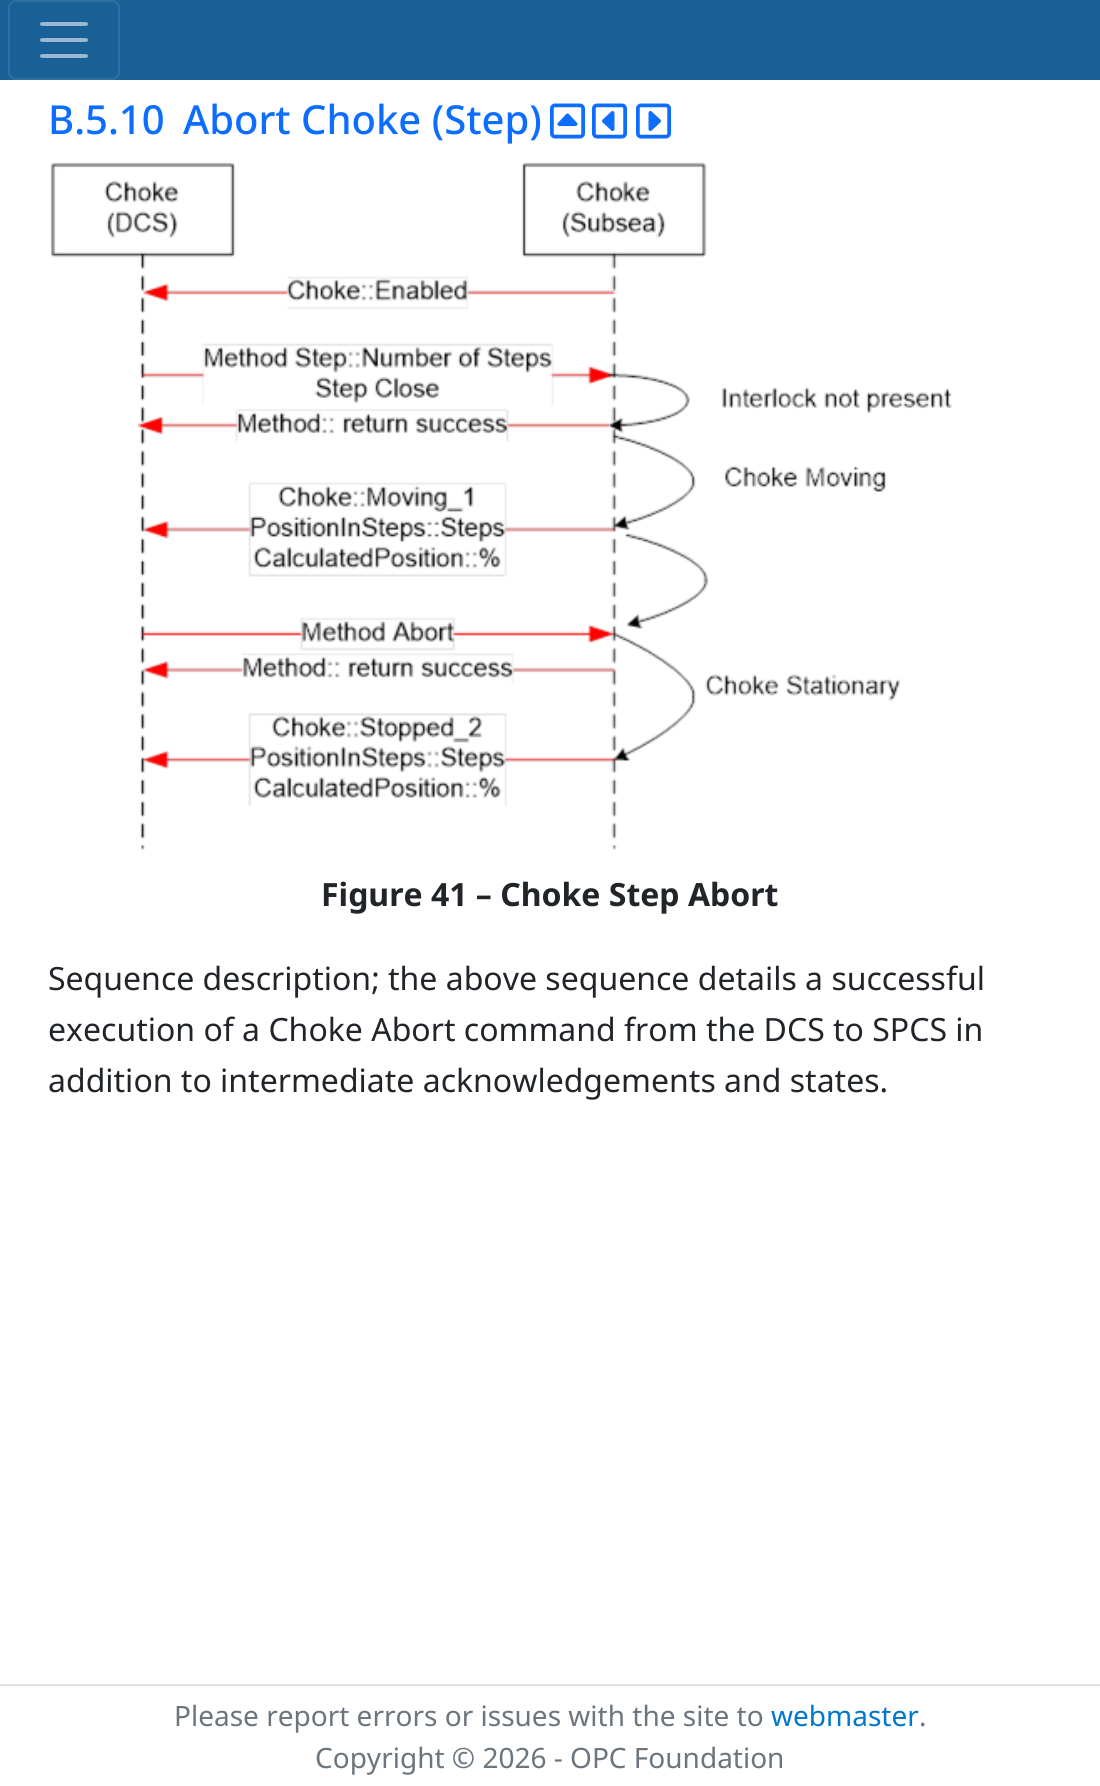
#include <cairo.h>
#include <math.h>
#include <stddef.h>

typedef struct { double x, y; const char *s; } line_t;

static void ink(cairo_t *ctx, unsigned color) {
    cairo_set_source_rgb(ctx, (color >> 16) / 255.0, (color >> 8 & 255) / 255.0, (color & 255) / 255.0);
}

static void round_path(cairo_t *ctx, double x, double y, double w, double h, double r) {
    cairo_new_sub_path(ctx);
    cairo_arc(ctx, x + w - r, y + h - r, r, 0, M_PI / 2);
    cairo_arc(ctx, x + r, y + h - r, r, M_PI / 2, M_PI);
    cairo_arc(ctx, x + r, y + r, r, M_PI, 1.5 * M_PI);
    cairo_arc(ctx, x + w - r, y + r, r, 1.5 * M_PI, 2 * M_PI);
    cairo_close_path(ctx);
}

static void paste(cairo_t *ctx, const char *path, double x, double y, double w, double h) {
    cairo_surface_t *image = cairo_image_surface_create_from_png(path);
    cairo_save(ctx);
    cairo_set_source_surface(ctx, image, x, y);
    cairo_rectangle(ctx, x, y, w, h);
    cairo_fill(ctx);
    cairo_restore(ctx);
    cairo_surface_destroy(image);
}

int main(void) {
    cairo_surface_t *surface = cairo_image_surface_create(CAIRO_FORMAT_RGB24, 1100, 1786);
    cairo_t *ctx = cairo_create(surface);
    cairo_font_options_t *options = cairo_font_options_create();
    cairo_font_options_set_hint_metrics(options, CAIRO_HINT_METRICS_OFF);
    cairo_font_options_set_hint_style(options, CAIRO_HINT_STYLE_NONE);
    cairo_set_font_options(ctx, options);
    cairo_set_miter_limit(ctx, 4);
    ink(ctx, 0xFFFFFF);
    cairo_paint(ctx);
    ink(ctx, 0x196096);
    cairo_rectangle(ctx, 0, 0, 1100, 80);
    cairo_fill(ctx);
    round_path(ctx, 9, 1, 110, 78, 7);
    ink(ctx, 0x3070A1);
    cairo_stroke(ctx);
    cairo_new_path(ctx);
    cairo_move_to(ctx, 42, 24);
    cairo_line_to(ctx, 86, 24);
    cairo_move_to(ctx, 42, 40);
    cairo_line_to(ctx, 86, 40);
    cairo_move_to(ctx, 42, 56);
    cairo_line_to(ctx, 86, 56);
    ink(ctx, 0x98B7D0);
    cairo_set_line_width(ctx, 4);
    cairo_set_line_cap(ctx, CAIRO_LINE_CAP_ROUND);
    cairo_stroke(ctx);
    cairo_select_font_face(ctx, "Noto Sans Medium", CAIRO_FONT_SLANT_NORMAL, CAIRO_FONT_WEIGHT_NORMAL);
    cairo_set_font_size(ctx, 40);
    ink(ctx, 0x0D6EFD);
    cairo_move_to(ctx, 48, 134);
    cairo_show_text(ctx, "B.5.10");
    cairo_move_to(ctx, 183, 134);
    cairo_show_text(ctx, "Abort Choke (Step)");
    paste(ctx, "media/1.png", 550, 103, 35, 36);
    paste(ctx, "media/2.png", 592, 103, 35, 36);
    paste(ctx, "media/3.png", 636, 103, 35, 36);
    paste(ctx, "media/4.png", 50, 162, 902, 688);
    cairo_select_font_face(ctx, "Noto Sans", CAIRO_FONT_SLANT_NORMAL, CAIRO_FONT_WEIGHT_BOLD);
    cairo_set_font_size(ctx, 32);
    ink(ctx, 0x212529);
    cairo_move_to(ctx, 321, 906);
    cairo_show_text(ctx, "Figure 41 – Choke Step Abort");
    cairo_select_font_face(ctx, "Noto Sans", CAIRO_FONT_SLANT_NORMAL, CAIRO_FONT_WEIGHT_NORMAL);
    {
        static const line_t items[] = {
            {48, 990, "Sequence description; the above sequence details a successful"},
            {48, 1041, "execution of a Choke Abort command from the DCS to SPCS in"},
            {48, 1092, "addition to intermediate acknowledgements and states."},
        };
        for (size_t i = 0; i < sizeof items / sizeof *items; i++) {
            cairo_move_to(ctx, items[i].x, items[i].y);
            cairo_show_text(ctx, items[i].s);
        }
    }
    ink(ctx, 0xDEE2E6);
    cairo_rectangle(ctx, 0, 1684, 1100, 2);
    cairo_fill(ctx);
    cairo_set_font_size(ctx, 28);
    ink(ctx, 0x6C757D);
    cairo_move_to(ctx, 174, 1726);
    cairo_show_text(ctx, "Please report errors or issues with the site to");
    ink(ctx, 0x0077CC);
    cairo_move_to(ctx, 771, 1726);
    cairo_show_text(ctx, "webmaster");
    ink(ctx, 0x6C757D);
    cairo_move_to(ctx, 919, 1726);
    cairo_show_text(ctx, ".");
    cairo_move_to(ctx, 315, 1768);
    cairo_show_text(ctx, "Copyright © 2026 - OPC Foundation");
    cairo_surface_write_to_png(surface, "image.png");
    cairo_font_options_destroy(options);
    cairo_destroy(ctx);
    cairo_surface_destroy(surface);
    return 0;
}
